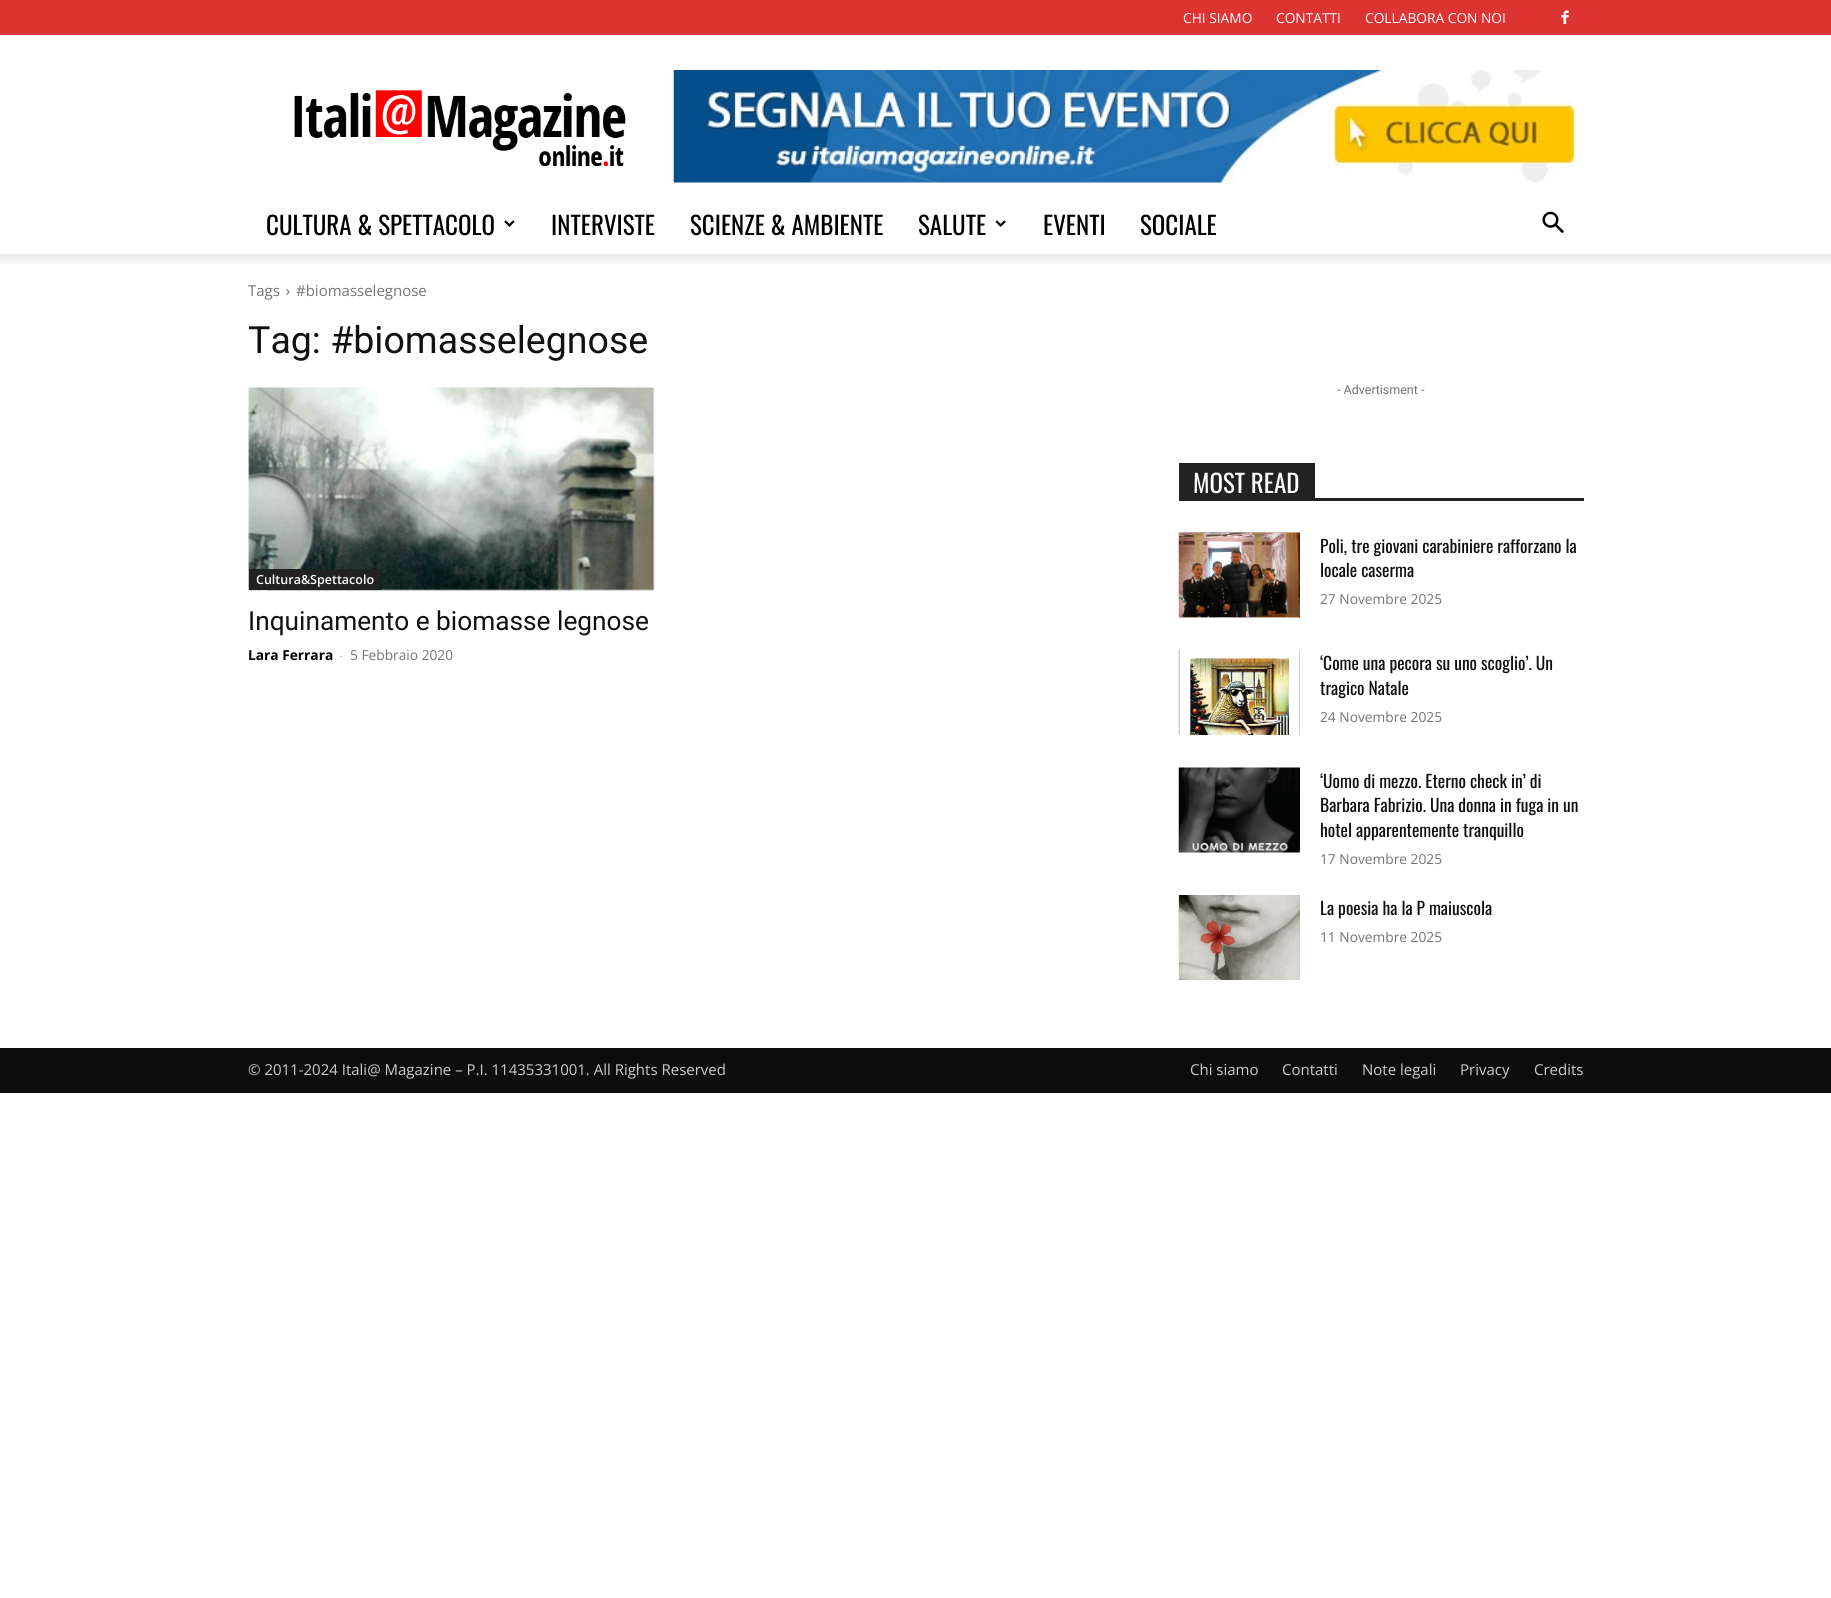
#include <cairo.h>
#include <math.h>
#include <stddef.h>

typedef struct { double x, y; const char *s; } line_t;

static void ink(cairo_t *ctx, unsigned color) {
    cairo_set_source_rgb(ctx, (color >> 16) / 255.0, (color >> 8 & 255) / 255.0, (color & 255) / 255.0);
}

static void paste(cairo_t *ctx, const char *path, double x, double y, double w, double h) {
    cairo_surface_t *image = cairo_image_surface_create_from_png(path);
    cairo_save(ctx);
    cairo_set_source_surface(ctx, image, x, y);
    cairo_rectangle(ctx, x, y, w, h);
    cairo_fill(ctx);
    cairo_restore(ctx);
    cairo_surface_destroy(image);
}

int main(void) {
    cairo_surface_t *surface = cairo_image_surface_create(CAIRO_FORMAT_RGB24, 1831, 1598);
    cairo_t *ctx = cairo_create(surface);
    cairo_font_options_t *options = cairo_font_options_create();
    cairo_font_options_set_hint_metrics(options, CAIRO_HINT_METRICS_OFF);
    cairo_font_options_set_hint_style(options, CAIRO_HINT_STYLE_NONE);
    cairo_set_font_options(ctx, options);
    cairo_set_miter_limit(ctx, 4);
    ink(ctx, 0xFFFFFF);
    cairo_paint(ctx);
    ink(ctx, 0xDD3333);
    cairo_rectangle(ctx, 0, 0, 1831, 35);
    cairo_fill(ctx);
    cairo_select_font_face(ctx, "Open Sans", CAIRO_FONT_SLANT_NORMAL, CAIRO_FONT_WEIGHT_NORMAL);
    cairo_set_font_size(ctx, 13.75);
    ink(ctx, 0xFFFFFF);
    {
        static const line_t items[] = {
            {1183, 23, "CHI SIAMO"},
            {1276, 23, "CONTATTI"},
            {1365, 23, "COLLABORA CON NOI"},
        };
        for (size_t i = 0; i < sizeof items / sizeof *items; i++) {
            cairo_move_to(ctx, items[i].x, items[i].y);
            cairo_show_text(ctx, items[i].s);
        }
    }
    paste(ctx, "media/1.png", 1561, 10, 8, 15);
    paste(ctx, "media/2.png", 294, 90, 332, 77);
    paste(ctx, "media/3.png", 673, 70, 903, 113);
    cairo_select_font_face(ctx, "Oswald", CAIRO_FONT_SLANT_NORMAL, CAIRO_FONT_WEIGHT_NORMAL);
    cairo_set_font_size(ctx, 25);
    ink(ctx, 0x000000);
    cairo_move_to(ctx, 266, 235);
    cairo_show_text(ctx, "CULTURA & SPETTACOLO");
    paste(ctx, "media/4.png", 504, 220, 11, 7);
    {
        static const line_t items[] = {
            {551, 235, "INTERVISTE"},
            {690, 235, "SCIENZE & AMBIENTE"},
            {918, 235, "SALUTE"},
        };
        for (size_t i = 0; i < sizeof items / sizeof *items; i++) {
            cairo_move_to(ctx, items[i].x, items[i].y);
            cairo_show_text(ctx, items[i].s);
        }
    }
    paste(ctx, "media/5.png", 995, 220, 11, 7);
    cairo_move_to(ctx, 1043, 235);
    cairo_show_text(ctx, "EVENTI");
    cairo_move_to(ctx, 1140, 235);
    cairo_show_text(ctx, "SOCIALE");
    paste(ctx, "media/6.png", 1542, 211, 22, 22);
    paste(ctx, "media/7.png", 0, 254, 1831, 10);
    cairo_select_font_face(ctx, "Open Sans", CAIRO_FONT_SLANT_NORMAL, CAIRO_FONT_WEIGHT_NORMAL);
    cairo_set_font_size(ctx, 15);
    ink(ctx, 0x747474);
    cairo_move_to(ctx, 248, 296);
    cairo_show_text(ctx, "Tags");
    paste(ctx, "media/8.png", 286, 289, 4, 6);
    cairo_move_to(ctx, 296, 296);
    cairo_show_text(ctx, "#biomasselegnose");
    cairo_select_font_face(ctx, "Roboto", CAIRO_FONT_SLANT_NORMAL, CAIRO_FONT_WEIGHT_NORMAL);
    cairo_set_font_size(ctx, 37.5);
    ink(ctx, 0x111111);
    cairo_move_to(ctx, 248, 353);
    cairo_show_text(ctx, "Tag: #biomasselegnose");
    paste(ctx, "media/9.png", 248, 387, 406, 203);
    paste(ctx, "media/10.png", 248, 387, 407, 204);
    ink(ctx, 0x222222);
    cairo_rectangle(ctx, 249, 569, 132, 21);
    cairo_fill(ctx);
    cairo_select_font_face(ctx, "Open Sans SemiBold", CAIRO_FONT_SLANT_NORMAL, CAIRO_FONT_WEIGHT_NORMAL);
    cairo_set_font_size(ctx, 12.5);
    ink(ctx, 0xFFFFFF);
    cairo_move_to(ctx, 256, 584);
    cairo_show_text(ctx, "Cultura&Spettacolo");
    cairo_select_font_face(ctx, "Roboto", CAIRO_FONT_SLANT_NORMAL, CAIRO_FONT_WEIGHT_NORMAL);
    cairo_set_font_size(ctx, 26.25);
    ink(ctx, 0x111111);
    cairo_move_to(ctx, 248, 630);
    cairo_show_text(ctx, "Inquinamento e biomasse legnose");
    cairo_select_font_face(ctx, "Open Sans", CAIRO_FONT_SLANT_NORMAL, CAIRO_FONT_WEIGHT_BOLD);
    cairo_set_font_size(ctx, 13.75);
    ink(ctx, 0x000000);
    cairo_move_to(ctx, 248, 660);
    cairo_show_text(ctx, "Lara Ferrara");
    cairo_select_font_face(ctx, "Open Sans", CAIRO_FONT_SLANT_NORMAL, CAIRO_FONT_WEIGHT_NORMAL);
    ink(ctx, 0xCCCCCC);
    cairo_move_to(ctx, 339, 660);
    cairo_show_text(ctx, "-");
    ink(ctx, 0x747474);
    cairo_move_to(ctx, 350, 660);
    cairo_show_text(ctx, "5 Febbraio 2020");
    cairo_select_font_face(ctx, "Roboto", CAIRO_FONT_SLANT_NORMAL, CAIRO_FONT_WEIGHT_NORMAL);
    cairo_set_font_size(ctx, 12.5);
    cairo_move_to(ctx, 1337, 394);
    cairo_show_text(ctx, "- Advertisment -");
    ink(ctx, 0x222222);
    cairo_rectangle(ctx, 1179, 498, 405, 3);
    cairo_fill(ctx);
    cairo_rectangle(ctx, 1179, 463, 136, 35);
    cairo_fill(ctx);
    cairo_select_font_face(ctx, "Oswald", CAIRO_FONT_SLANT_NORMAL, CAIRO_FONT_WEIGHT_NORMAL);
    cairo_set_font_size(ctx, 25);
    ink(ctx, 0xFFFFFF);
    cairo_move_to(ctx, 1193, 493);
    cairo_show_text(ctx, "MOST READ");
    paste(ctx, "media/12.png", 1179, 532, 121, 86);
    paste(ctx, "media/11.png", 1178, 532, 122, 86);
    cairo_set_font_size(ctx, 17.5);
    ink(ctx, 0x111111);
    cairo_move_to(ctx, 1320, 553);
    cairo_show_text(ctx, "Poli, tre giovani carabiniere rafforzano la");
    cairo_move_to(ctx, 1320, 577);
    cairo_show_text(ctx, "locale caserma");
    cairo_select_font_face(ctx, "Open Sans", CAIRO_FONT_SLANT_NORMAL, CAIRO_FONT_WEIGHT_NORMAL);
    cairo_set_font_size(ctx, 13.75);
    ink(ctx, 0x747474);
    cairo_move_to(ctx, 1320, 604);
    cairo_show_text(ctx, "27 Novembre 2025");
    paste(ctx, "media/13.png", 1178, 650, 122, 85);
    cairo_select_font_face(ctx, "Oswald", CAIRO_FONT_SLANT_NORMAL, CAIRO_FONT_WEIGHT_NORMAL);
    cairo_set_font_size(ctx, 17.5);
    ink(ctx, 0x111111);
    cairo_move_to(ctx, 1320, 670);
    cairo_show_text(ctx, "‘Come una pecora su uno scoglio’. Un");
    cairo_move_to(ctx, 1320, 695);
    cairo_show_text(ctx, "tragico Natale");
    cairo_select_font_face(ctx, "Open Sans", CAIRO_FONT_SLANT_NORMAL, CAIRO_FONT_WEIGHT_NORMAL);
    cairo_set_font_size(ctx, 13.75);
    ink(ctx, 0x747474);
    cairo_move_to(ctx, 1320, 722);
    cairo_show_text(ctx, "24 Novembre 2025");
    paste(ctx, "media/15.png", 1179, 767, 121, 86);
    paste(ctx, "media/14.png", 1178, 767, 122, 86);
    cairo_select_font_face(ctx, "Oswald", CAIRO_FONT_SLANT_NORMAL, CAIRO_FONT_WEIGHT_NORMAL);
    cairo_set_font_size(ctx, 17.5);
    ink(ctx, 0x111111);
    {
        static const line_t items[] = {
            {1320, 788, "‘Uomo di mezzo. Eterno check in’ di"},
            {1320, 812, "Barbara Fabrizio. Una donna in fuga in un"},
            {1320, 837, "hotel apparentemente tranquillo"},
        };
        for (size_t i = 0; i < sizeof items / sizeof *items; i++) {
            cairo_move_to(ctx, items[i].x, items[i].y);
            cairo_show_text(ctx, items[i].s);
        }
    }
    cairo_select_font_face(ctx, "Open Sans", CAIRO_FONT_SLANT_NORMAL, CAIRO_FONT_WEIGHT_NORMAL);
    cairo_set_font_size(ctx, 13.75);
    ink(ctx, 0x747474);
    cairo_move_to(ctx, 1320, 864);
    cairo_show_text(ctx, "17 Novembre 2025");
    paste(ctx, "media/16.png", 1178, 895, 122, 85);
    cairo_select_font_face(ctx, "Oswald", CAIRO_FONT_SLANT_NORMAL, CAIRO_FONT_WEIGHT_NORMAL);
    cairo_set_font_size(ctx, 17.5);
    ink(ctx, 0x111111);
    cairo_move_to(ctx, 1320, 915);
    cairo_show_text(ctx, "La poesia ha la P maiuscola");
    cairo_select_font_face(ctx, "Open Sans", CAIRO_FONT_SLANT_NORMAL, CAIRO_FONT_WEIGHT_NORMAL);
    cairo_set_font_size(ctx, 13.75);
    ink(ctx, 0x747474);
    cairo_move_to(ctx, 1320, 942);
    cairo_show_text(ctx, "11 Novembre 2025");
    ink(ctx, 0x0D0D0D);
    cairo_rectangle(ctx, 0, 1048, 1831, 45);
    cairo_fill(ctx);
    cairo_set_font_size(ctx, 15);
    ink(ctx, 0xCCCCCC);
    {
        static const line_t items[] = {
            {248, 1075, "© 2011-2024 Itali@ Magazine – P.I. 11435331001. All Rights Reserved"},
            {1190, 1075, "Chi siamo"},
            {1282, 1075, "Contatti"},
            {1362, 1075, "Note legali"},
            {1460, 1075, "Privacy"},
            {1534, 1075, "Credits"},
        };
        for (size_t i = 0; i < sizeof items / sizeof *items; i++) {
            cairo_move_to(ctx, items[i].x, items[i].y);
            cairo_show_text(ctx, items[i].s);
        }
    }
    cairo_surface_write_to_png(surface, "image.png");
    cairo_font_options_destroy(options);
    cairo_destroy(ctx);
    cairo_surface_destroy(surface);
    return 0;
}
